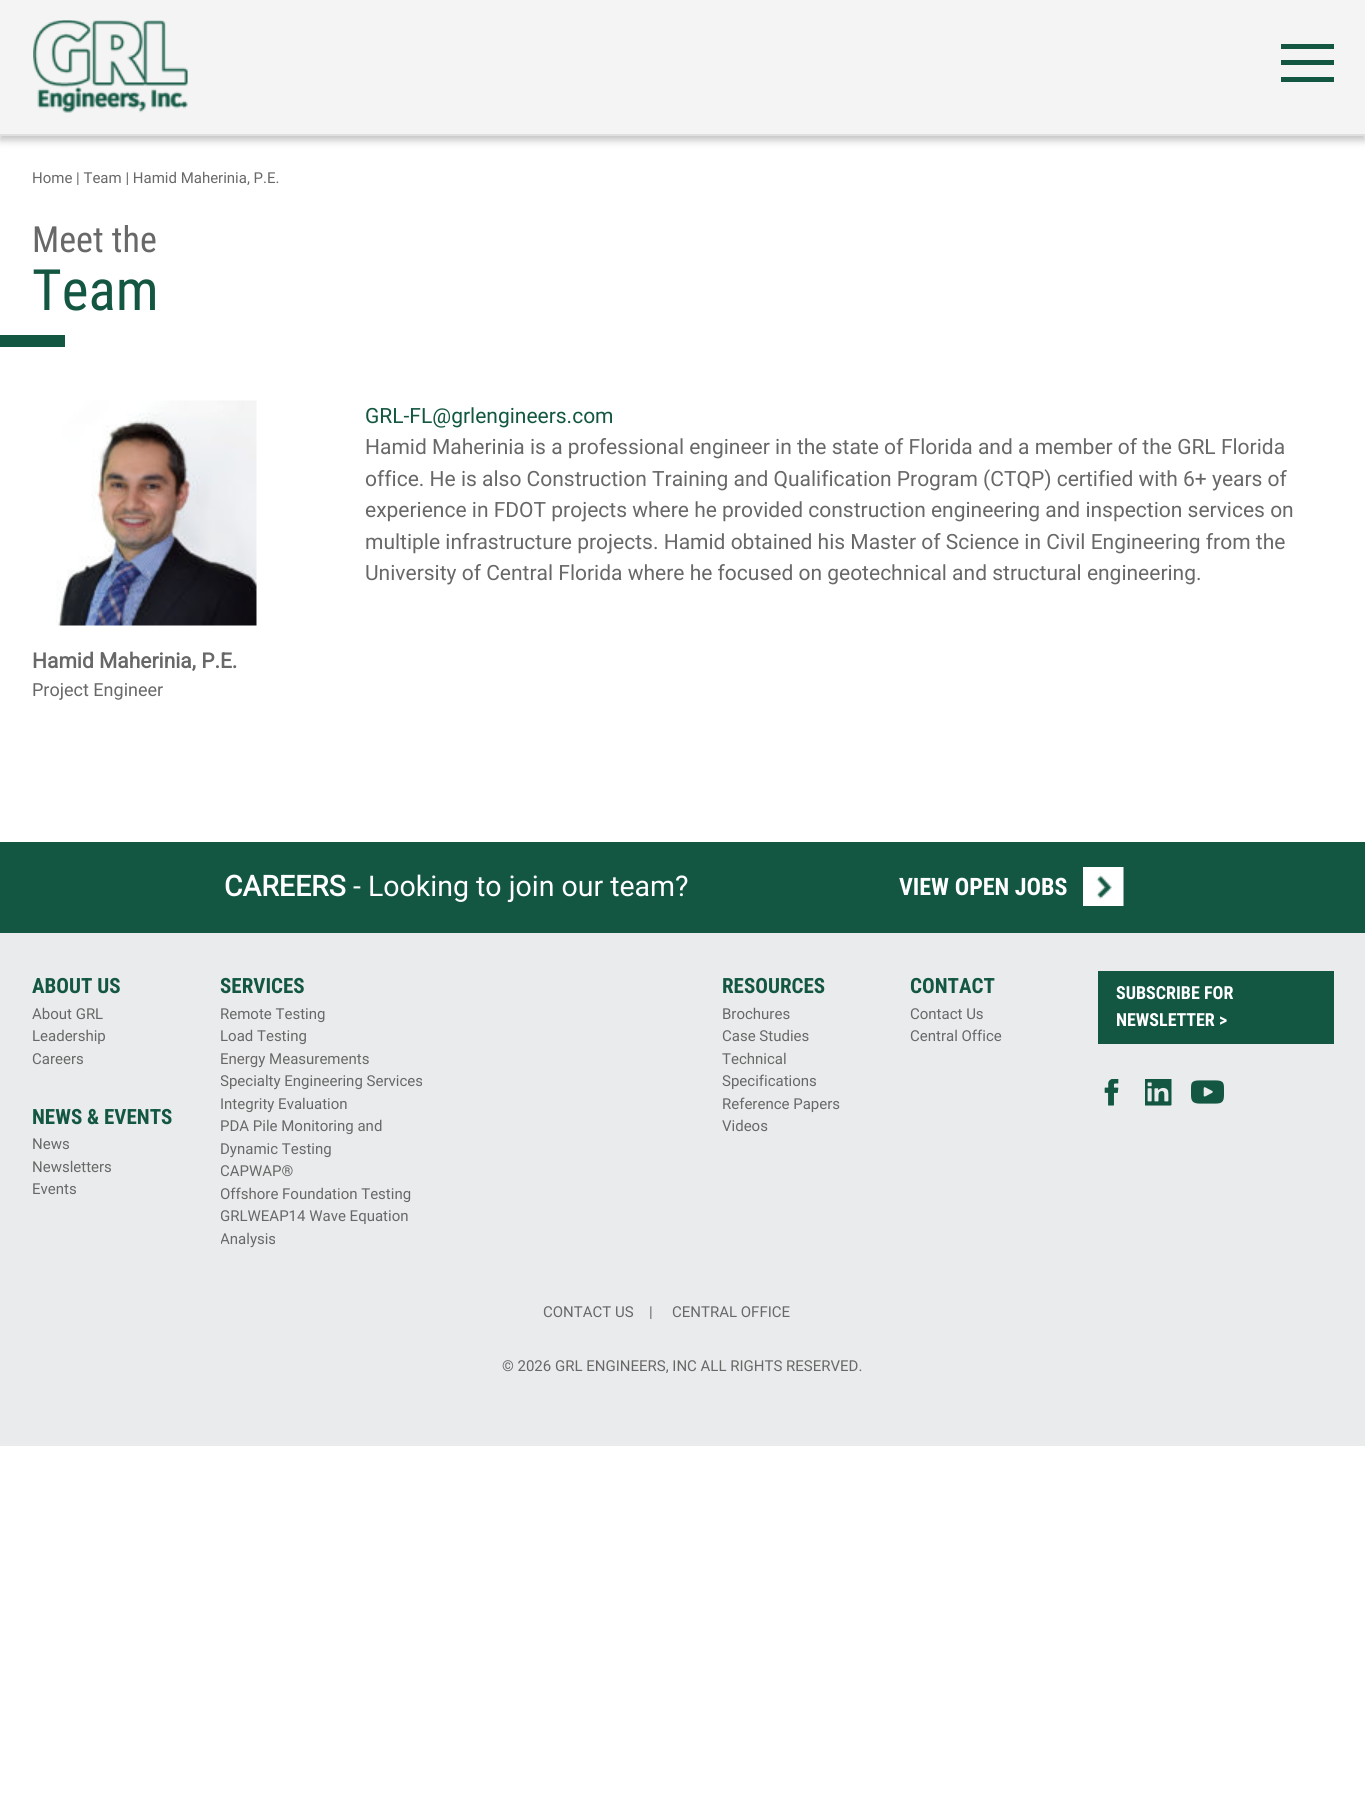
#include <cairo.h>
#include <math.h>
#include <stddef.h>

typedef struct { double x, y; const char *s; } line_t;
typedef struct { double x, y, w, h; unsigned color; } box_t;

static void ink(cairo_t *ctx, unsigned color) {
    cairo_set_source_rgb(ctx, (color >> 16) / 255.0, (color >> 8 & 255) / 255.0, (color & 255) / 255.0);
}

static void round_path(cairo_t *ctx, double x, double y, double w, double h, double r) {
    cairo_new_sub_path(ctx);
    cairo_arc(ctx, x + w - r, y + h - r, r, 0, M_PI / 2);
    cairo_arc(ctx, x + r, y + h - r, r, M_PI / 2, M_PI);
    cairo_arc(ctx, x + r, y + r, r, M_PI, 1.5 * M_PI);
    cairo_arc(ctx, x + w - r, y + r, r, 1.5 * M_PI, 2 * M_PI);
    cairo_close_path(ctx);
}

static void blur_box(cairo_t *ctx, double x, double y, double w, double h, double r, double blur, double alpha) {
    cairo_push_group_with_content(ctx, CAIRO_CONTENT_ALPHA);
    cairo_set_operator(ctx, CAIRO_OPERATOR_SOURCE);
    for (int i = 15; i >= -15 && fmin(w, h) + blur * i / 3 > 0; i -= 2) {
        double e = blur * i / 6;
        cairo_set_source_rgba(ctx, 0, 0, 0, alpha * erfc((i - 1) / 8.5) / 2);
        round_path(ctx, x - e, y - e, w + 2 * e, h + 2 * e, fmax(0, fmin(r + e + blur * .6, fmin(w, h) / 2 + e)));
        cairo_fill(ctx);
    }
    cairo_pattern_t *soft = cairo_pop_group(ctx);
    cairo_mask(ctx, soft);
    cairo_pattern_destroy(soft);
}

static void paste(cairo_t *ctx, const char *path, double x, double y, double w, double h) {
    cairo_surface_t *image = cairo_image_surface_create_from_png(path);
    cairo_save(ctx);
    cairo_set_source_surface(ctx, image, x, y);
    cairo_rectangle(ctx, x, y, w, h);
    cairo_fill(ctx);
    cairo_restore(ctx);
    cairo_surface_destroy(image);
}

int main(void) {
    cairo_surface_t *surface = cairo_image_surface_create(CAIRO_FORMAT_RGB24, 1365, 1806);
    cairo_t *ctx = cairo_create(surface);
    cairo_font_options_t *options = cairo_font_options_create();
    cairo_font_options_set_hint_metrics(options, CAIRO_HINT_METRICS_OFF);
    cairo_font_options_set_hint_style(options, CAIRO_HINT_STYLE_NONE);
    cairo_set_font_options(ctx, options);
    cairo_set_miter_limit(ctx, 4);
    ink(ctx, 0xFFFFFF);
    cairo_paint(ctx);
    ink(ctx, 0x000000);
    blur_box(ctx, 0, 5, 1365, 135, 0, 4, 0.25);
    ink(ctx, 0xF4F4F4);
    cairo_rectangle(ctx, 0, 0, 1365, 134);
    cairo_fill(ctx);
    ink(ctx, 0xE0E0E0);
    cairo_rectangle(ctx, 0, 134, 1365, 2);
    cairo_fill(ctx);
    paste(ctx, "media/1.png", 33, 20, 155, 93);
    {
        static const box_t items[] = {
            {1281, 44, 53, 5, 0x135743},
            {1281, 60, 53, 5, 0x135743},
            {1281, 77, 53, 5, 0x135743},
        };
        for (size_t i = 0; i < sizeof items / sizeof *items; i++) {
            ink(ctx, items[i].color);
            cairo_rectangle(ctx, items[i].x, items[i].y, items[i].w, items[i].h);
            cairo_fill(ctx);
        }
    }
    cairo_select_font_face(ctx, "Roboto", CAIRO_FONT_SLANT_NORMAL, CAIRO_FONT_WEIGHT_NORMAL);
    cairo_set_font_size(ctx, 15);
    ink(ctx, 0x686868);
    cairo_move_to(ctx, 32, 183);
    cairo_show_text(ctx, "Home | Team | Hamid Maherinia, P.E.");
    cairo_select_font_face(ctx, "Roboto Condensed", CAIRO_FONT_SLANT_NORMAL, CAIRO_FONT_WEIGHT_NORMAL);
    cairo_set_font_size(ctx, 36);
    cairo_move_to(ctx, 32, 252);
    cairo_show_text(ctx, "Meet the");
    cairo_set_font_size(ctx, 57);
    ink(ctx, 0x135743);
    cairo_move_to(ctx, 32, 310);
    cairo_show_text(ctx, "Team");
    cairo_rectangle(ctx, 0, 335, 65, 12);
    cairo_fill(ctx);
    cairo_select_font_face(ctx, "Roboto", CAIRO_FONT_SLANT_NORMAL, CAIRO_FONT_WEIGHT_NORMAL);
    cairo_set_font_size(ctx, 21);
    cairo_move_to(ctx, 365, 423);
    cairo_show_text(ctx, "GRL-FL@grlengineers.com");
    ink(ctx, 0x686868);
    {
        static const line_t items[] = {
            {365, 454, "Hamid Maherinia is a professional engineer in the state of Florida and a member of the GRL Florida"},
            {365, 486, "office. He is also Construction Training and Qualification Program (CTQP) certified with 6+ years of"},
            {365, 517, "experience in FDOT projects where he provided construction engineering and inspection services on"},
            {365, 549, "multiple infrastructure projects. Hamid obtained his Master of Science in Civil Engineering from the"},
            {365, 580, "University of Central Florida where he focused on geotechnical and structural engineering."},
        };
        for (size_t i = 0; i < sizeof items / sizeof *items; i++) {
            cairo_move_to(ctx, items[i].x, items[i].y);
            cairo_show_text(ctx, items[i].s);
        }
    }
    paste(ctx, "media/2.png", 56, 400, 201, 226);
    cairo_select_font_face(ctx, "Roboto", CAIRO_FONT_SLANT_NORMAL, CAIRO_FONT_WEIGHT_BOLD);
    cairo_move_to(ctx, 32, 668);
    cairo_show_text(ctx, "Hamid Maherinia, P.E.");
    cairo_select_font_face(ctx, "Roboto", CAIRO_FONT_SLANT_NORMAL, CAIRO_FONT_WEIGHT_NORMAL);
    cairo_set_font_size(ctx, 18);
    cairo_move_to(ctx, 32, 696);
    cairo_show_text(ctx, "Project Engineer");
    ink(ctx, 0x135743);
    cairo_rectangle(ctx, 0, 842, 1365, 91);
    cairo_fill(ctx);
    cairo_select_font_face(ctx, "Roboto", CAIRO_FONT_SLANT_NORMAL, CAIRO_FONT_WEIGHT_BOLD);
    cairo_set_font_size(ctx, 28.5);
    ink(ctx, 0xFFFFFF);
    cairo_move_to(ctx, 224, 896);
    cairo_show_text(ctx, "CAREERS");
    cairo_select_font_face(ctx, "Roboto", CAIRO_FONT_SLANT_NORMAL, CAIRO_FONT_WEIGHT_NORMAL);
    cairo_move_to(ctx, 353, 896);
    cairo_show_text(ctx, "- Looking to join our team?");
    cairo_select_font_face(ctx, "Roboto Condensed", CAIRO_FONT_SLANT_NORMAL, CAIRO_FONT_WEIGHT_BOLD);
    cairo_set_font_size(ctx, 24);
    cairo_move_to(ctx, 899, 895);
    cairo_show_text(ctx, "VIEW OPEN JOBS");
    paste(ctx, "media/3.png", 1083, 867, 41, 39);
    ink(ctx, 0xEAEBEC);
    cairo_rectangle(ctx, 0, 933, 1365, 513);
    cairo_fill(ctx);
    cairo_set_font_size(ctx, 21);
    ink(ctx, 0x135743);
    cairo_move_to(ctx, 32, 993);
    cairo_show_text(ctx, "ABOUT US");
    cairo_select_font_face(ctx, "Roboto", CAIRO_FONT_SLANT_NORMAL, CAIRO_FONT_WEIGHT_NORMAL);
    cairo_set_font_size(ctx, 15);
    ink(ctx, 0x686868);
    {
        static const line_t items[] = {
            {32, 1019, "About GRL"},
            {32, 1041, "Leadership"},
            {32, 1064, "Careers"},
        };
        for (size_t i = 0; i < sizeof items / sizeof *items; i++) {
            cairo_move_to(ctx, items[i].x, items[i].y);
            cairo_show_text(ctx, items[i].s);
        }
    }
    cairo_select_font_face(ctx, "Roboto Condensed", CAIRO_FONT_SLANT_NORMAL, CAIRO_FONT_WEIGHT_BOLD);
    cairo_set_font_size(ctx, 21);
    ink(ctx, 0x135743);
    cairo_move_to(ctx, 32, 1124);
    cairo_show_text(ctx, "NEWS & EVENTS");
    cairo_select_font_face(ctx, "Roboto", CAIRO_FONT_SLANT_NORMAL, CAIRO_FONT_WEIGHT_NORMAL);
    cairo_set_font_size(ctx, 15);
    ink(ctx, 0x686868);
    {
        static const line_t items[] = {
            {32, 1149, "News"},
            {32, 1172, "Newsletters"},
            {32, 1194, "Events"},
        };
        for (size_t i = 0; i < sizeof items / sizeof *items; i++) {
            cairo_move_to(ctx, items[i].x, items[i].y);
            cairo_show_text(ctx, items[i].s);
        }
    }
    cairo_select_font_face(ctx, "Roboto Condensed", CAIRO_FONT_SLANT_NORMAL, CAIRO_FONT_WEIGHT_BOLD);
    cairo_set_font_size(ctx, 21);
    ink(ctx, 0x135743);
    cairo_move_to(ctx, 220, 993);
    cairo_show_text(ctx, "SERVICES");
    cairo_select_font_face(ctx, "Roboto", CAIRO_FONT_SLANT_NORMAL, CAIRO_FONT_WEIGHT_NORMAL);
    cairo_set_font_size(ctx, 15);
    ink(ctx, 0x686868);
    {
        static const line_t items[] = {
            {220, 1019, "Remote Testing"},
            {220, 1041, "Load Testing"},
            {220, 1064, "Energy Measurements"},
        };
        for (size_t i = 0; i < sizeof items / sizeof *items; i++) {
            cairo_move_to(ctx, items[i].x, items[i].y);
            cairo_show_text(ctx, items[i].s);
        }
    }
    cairo_save(ctx);
    cairo_rectangle(ctx, 221, 1002, 469, 248);
    cairo_clip(ctx);
    cairo_move_to(ctx, 220, 1086);
    cairo_show_text(ctx, "Specialty Engineering Services");
    cairo_restore(ctx);
    {
        static const line_t items[] = {
            {220, 1109, "Integrity Evaluation"},
            {220, 1131, "PDA Pile Monitoring and"},
            {220, 1154, "Dynamic Testing"},
        };
        for (size_t i = 0; i < sizeof items / sizeof *items; i++) {
            cairo_move_to(ctx, items[i].x, items[i].y);
            cairo_show_text(ctx, items[i].s);
        }
    }
    cairo_save(ctx);
    cairo_rectangle(ctx, 221, 1002, 469, 248);
    cairo_clip(ctx);
    {
        static const line_t items[] = {
            {220, 1176, "CAPWAP®"},
            {220, 1199, "Offshore Foundation Testing"},
            {220, 1221, "GRLWEAP14 Wave Equation"},
            {220, 1244, "Analysis"},
        };
        for (size_t i = 0; i < sizeof items / sizeof *items; i++) {
            cairo_move_to(ctx, items[i].x, items[i].y);
            cairo_show_text(ctx, items[i].s);
        }
    }
    cairo_restore(ctx);
    cairo_select_font_face(ctx, "Roboto Condensed", CAIRO_FONT_SLANT_NORMAL, CAIRO_FONT_WEIGHT_BOLD);
    cairo_set_font_size(ctx, 21);
    ink(ctx, 0x135743);
    cairo_move_to(ctx, 722, 993);
    cairo_show_text(ctx, "RESOURCES");
    cairo_select_font_face(ctx, "Roboto", CAIRO_FONT_SLANT_NORMAL, CAIRO_FONT_WEIGHT_NORMAL);
    cairo_set_font_size(ctx, 15);
    ink(ctx, 0x686868);
    {
        static const line_t items[] = {
            {722, 1019, "Brochures"},
            {722, 1041, "Case Studies"},
            {722, 1064, "Technical"},
            {722, 1086, "Specifications"},
            {722, 1109, "Reference Papers"},
            {722, 1131, "Videos"},
        };
        for (size_t i = 0; i < sizeof items / sizeof *items; i++) {
            cairo_move_to(ctx, items[i].x, items[i].y);
            cairo_show_text(ctx, items[i].s);
        }
    }
    cairo_select_font_face(ctx, "Roboto Condensed", CAIRO_FONT_SLANT_NORMAL, CAIRO_FONT_WEIGHT_BOLD);
    cairo_set_font_size(ctx, 21);
    ink(ctx, 0x135743);
    cairo_move_to(ctx, 910, 993);
    cairo_show_text(ctx, "CONTACT");
    cairo_select_font_face(ctx, "Roboto", CAIRO_FONT_SLANT_NORMAL, CAIRO_FONT_WEIGHT_NORMAL);
    cairo_set_font_size(ctx, 15);
    ink(ctx, 0x686868);
    cairo_move_to(ctx, 910, 1019);
    cairo_show_text(ctx, "Contact Us");
    cairo_move_to(ctx, 910, 1041);
    cairo_show_text(ctx, "Central Office");
    ink(ctx, 0x135743);
    cairo_rectangle(ctx, 1098, 971, 236, 73);
    cairo_fill(ctx);
    cairo_select_font_face(ctx, "Roboto Condensed", CAIRO_FONT_SLANT_NORMAL, CAIRO_FONT_WEIGHT_BOLD);
    cairo_set_font_size(ctx, 18);
    ink(ctx, 0xFFFFFF);
    cairo_move_to(ctx, 1116, 999);
    cairo_show_text(ctx, "SUBSCRIBE FOR");
    cairo_move_to(ctx, 1116, 1026);
    cairo_show_text(ctx, "NEWSLETTER >");
    paste(ctx, "media/4.png", 1104, 1079, 15, 27);
    paste(ctx, "media/5.png", 1145, 1079, 27, 27);
    paste(ctx, "media/6.png", 1191, 1080, 33, 24);
    cairo_select_font_face(ctx, "Roboto", CAIRO_FONT_SLANT_NORMAL, CAIRO_FONT_WEIGHT_NORMAL);
    cairo_set_font_size(ctx, 15);
    ink(ctx, 0x686868);
    {
        static const line_t items[] = {
            {543, 1317, "CONTACT US"},
            {649, 1317, "|"},
            {672, 1317, "CENTRAL OFFICE"},
            {502, 1371, "© 2026 GRL ENGINEERS, INC ALL RIGHTS RESERVED."},
        };
        for (size_t i = 0; i < sizeof items / sizeof *items; i++) {
            cairo_move_to(ctx, items[i].x, items[i].y);
            cairo_show_text(ctx, items[i].s);
        }
    }
    cairo_surface_write_to_png(surface, "image.png");
    cairo_font_options_destroy(options);
    cairo_destroy(ctx);
    cairo_surface_destroy(surface);
    return 0;
}
